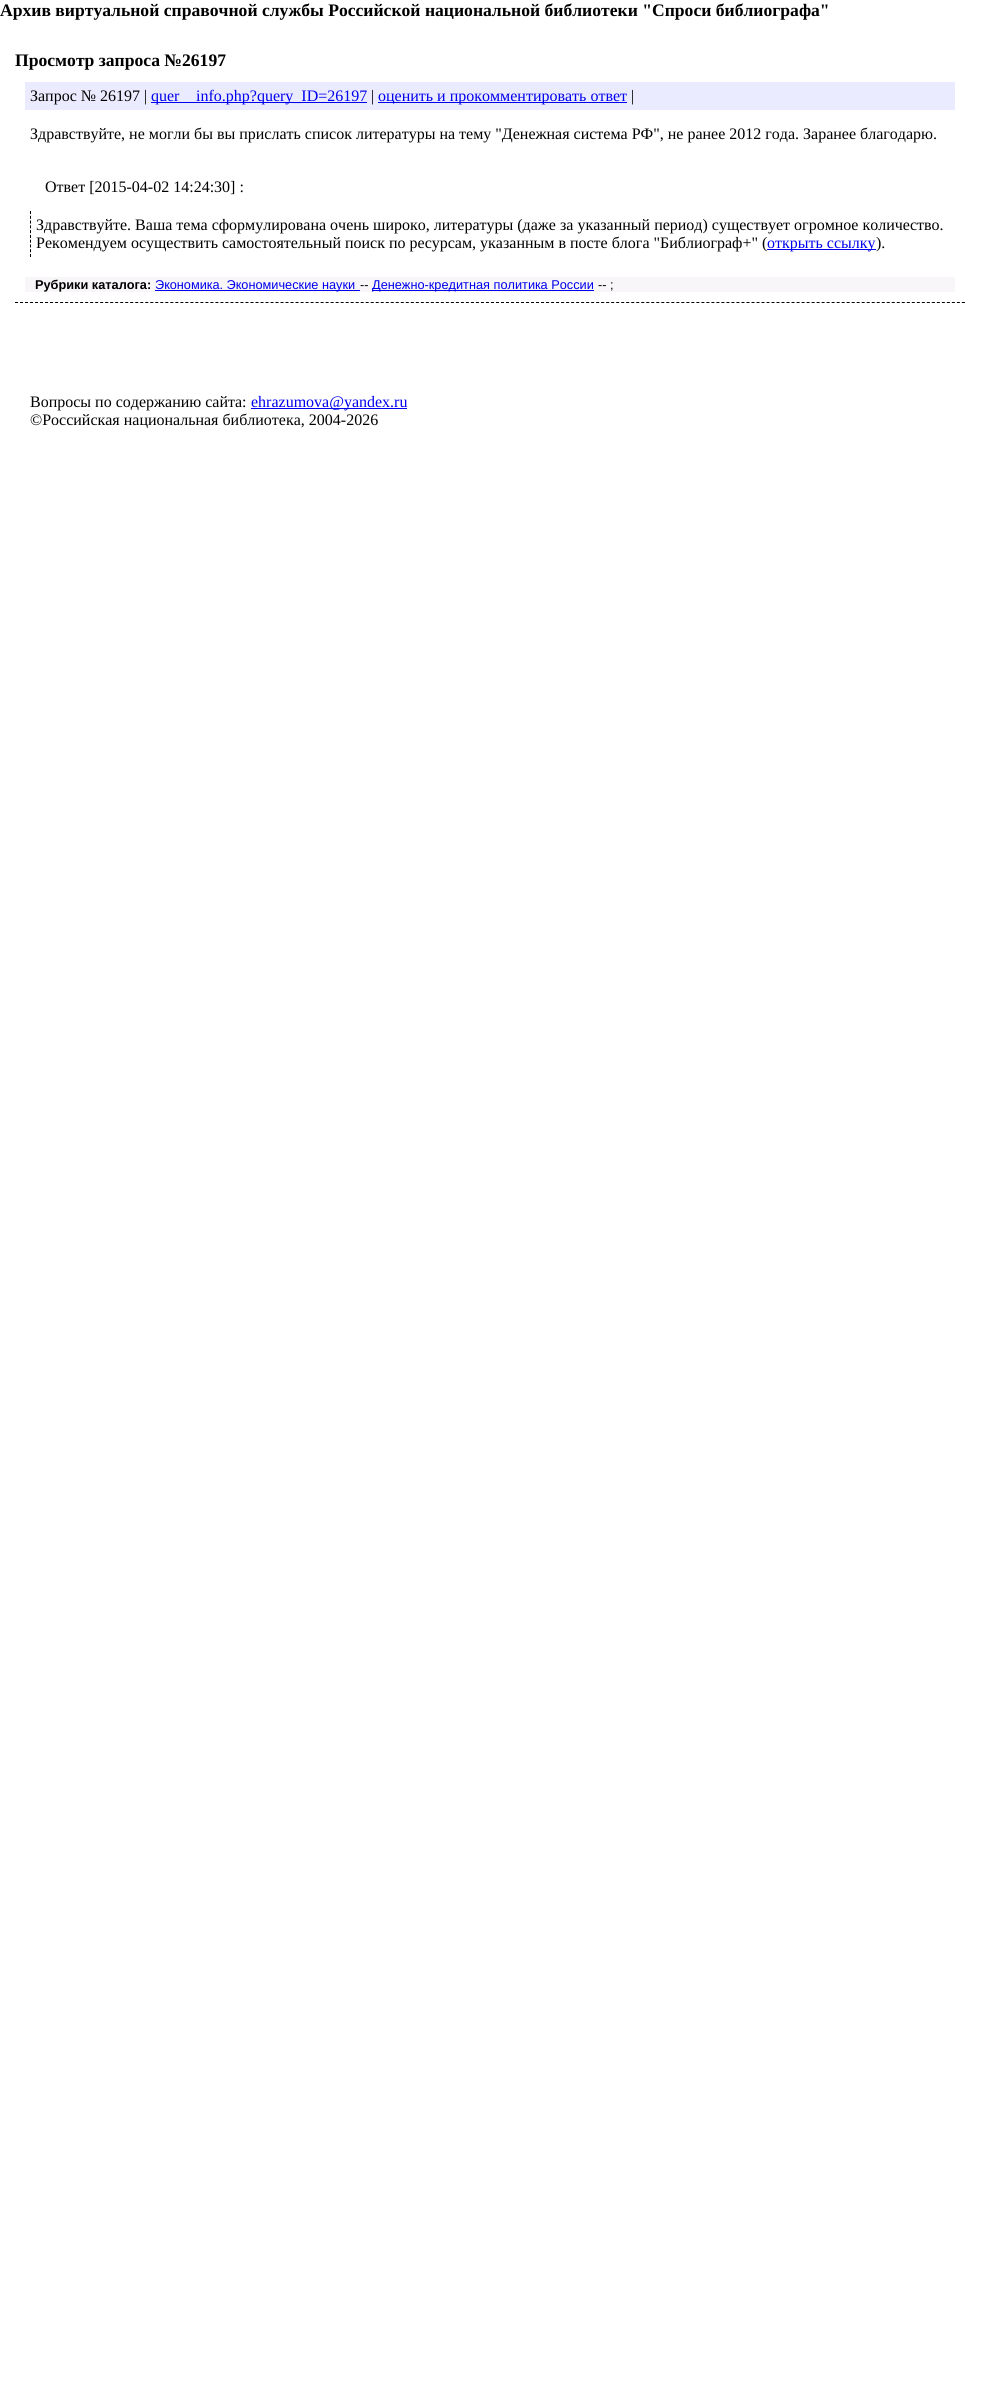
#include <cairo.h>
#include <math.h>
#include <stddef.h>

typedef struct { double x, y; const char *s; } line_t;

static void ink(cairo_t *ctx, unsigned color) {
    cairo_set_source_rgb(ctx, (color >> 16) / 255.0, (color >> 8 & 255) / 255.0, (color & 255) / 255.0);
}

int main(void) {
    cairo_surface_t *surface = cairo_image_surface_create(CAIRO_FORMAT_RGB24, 998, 2405);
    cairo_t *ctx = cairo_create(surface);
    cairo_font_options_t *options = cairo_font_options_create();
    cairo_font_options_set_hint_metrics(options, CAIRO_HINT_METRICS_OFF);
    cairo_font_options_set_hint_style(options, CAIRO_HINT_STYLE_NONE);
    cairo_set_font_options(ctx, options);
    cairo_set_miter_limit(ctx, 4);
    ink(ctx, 0xFFFFFF);
    cairo_paint(ctx);
    cairo_select_font_face(ctx, "Liberation Serif", CAIRO_FONT_SLANT_NORMAL, CAIRO_FONT_WEIGHT_BOLD);
    cairo_set_font_size(ctx, 17.6);
    ink(ctx, 0x000000);
    cairo_move_to(ctx, 0, 16);
    cairo_show_text(ctx, "Архив виртуальной справочной службы Российской национальной библиотеки \"Спроси библиографа\"");
    cairo_move_to(ctx, 15, 66);
    cairo_show_text(ctx, "Просмотр запроса №26197");
    cairo_new_path(ctx);
    cairo_move_to(ctx, 15, 302.5);
    cairo_line_to(ctx, 965, 302.5);
    cairo_set_line_width(ctx, 1);
    cairo_set_dash(ctx, (double[]){3, 2.01}, 2, 0);
    cairo_stroke(ctx);
    ink(ctx, 0xEBEBFF);
    cairo_rectangle(ctx, 25, 82, 930, 28);
    cairo_fill(ctx);
    cairo_select_font_face(ctx, "Liberation Serif", CAIRO_FONT_SLANT_NORMAL, CAIRO_FONT_WEIGHT_NORMAL);
    cairo_set_font_size(ctx, 16);
    ink(ctx, 0x000000);
    cairo_move_to(ctx, 30, 101);
    cairo_show_text(ctx, "Запрос № 26197 |");
    ink(ctx, 0x0000EE);
    cairo_rectangle(ctx, 151, 102, 216, 1);
    cairo_fill(ctx);
    cairo_move_to(ctx, 151, 101);
    cairo_show_text(ctx, "quer");
    cairo_move_to(ctx, 196, 101);
    cairo_show_text(ctx, "info.php?query_ID=26197");
    ink(ctx, 0x000000);
    cairo_move_to(ctx, 371, 101);
    cairo_show_text(ctx, "|");
    ink(ctx, 0x0000EE);
    cairo_rectangle(ctx, 378, 102, 249, 1);
    cairo_fill(ctx);
    cairo_move_to(ctx, 378, 101);
    cairo_show_text(ctx, "оценить и прокомментировать ответ");
    ink(ctx, 0x000000);
    {
        static const line_t items[] = {
            {631, 101, "|"},
            {30, 139, "Здравствуйте, не могли бы вы прислать список литературы на тему \"Денежная система РФ\", не ранее 2012 года. Заранее благодарю."},
            {45, 192, "Ответ [2015-04-02 14:24:30] :"},
        };
        for (size_t i = 0; i < sizeof items / sizeof *items; i++) {
            cairo_move_to(ctx, items[i].x, items[i].y);
            cairo_show_text(ctx, items[i].s);
        }
    }
    cairo_new_path(ctx);
    cairo_move_to(ctx, 30.5, 211);
    cairo_line_to(ctx, 30.5, 257);
    cairo_set_dash(ctx, (double[]){3, 1.78}, 2, 0);
    cairo_stroke(ctx);
    cairo_move_to(ctx, 36, 230);
    cairo_show_text(ctx, "Здравствуйте. Ваша тема сформулирована очень широко, литературы (даже за указанный период) существует огромное количество.");
    cairo_move_to(ctx, 36, 248);
    cairo_show_text(ctx, "Рекомендуем осуществить самостоятельный поиск по ресурсам, указанным в посте блога \"Библиограф+\" (");
    ink(ctx, 0x0000EE);
    cairo_rectangle(ctx, 767, 249, 109, 1);
    cairo_fill(ctx);
    cairo_move_to(ctx, 767, 248);
    cairo_show_text(ctx, "открыть ссылку");
    ink(ctx, 0x000000);
    cairo_move_to(ctx, 876, 248);
    cairo_show_text(ctx, ").");
    ink(ctx, 0xF8F6F8);
    cairo_rectangle(ctx, 25, 277, 930, 15);
    cairo_fill(ctx);
    cairo_select_font_face(ctx, "Liberation Sans", CAIRO_FONT_SLANT_NORMAL, CAIRO_FONT_WEIGHT_BOLD);
    cairo_set_font_size(ctx, 12.75);
    ink(ctx, 0x000000);
    cairo_move_to(ctx, 35, 289);
    cairo_show_text(ctx, "Рубрики каталога:");
    ink(ctx, 0x0000EE);
    cairo_rectangle(ctx, 155, 290, 205, 1);
    cairo_fill(ctx);
    cairo_select_font_face(ctx, "Liberation Sans", CAIRO_FONT_SLANT_NORMAL, CAIRO_FONT_WEIGHT_NORMAL);
    cairo_move_to(ctx, 155, 289);
    cairo_show_text(ctx, "Экономика. Экономические науки");
    ink(ctx, 0x000000);
    cairo_move_to(ctx, 360, 289);
    cairo_show_text(ctx, "--");
    ink(ctx, 0x0000EE);
    cairo_rectangle(ctx, 372, 290, 222, 1);
    cairo_fill(ctx);
    cairo_move_to(ctx, 372, 289);
    cairo_show_text(ctx, "Денежно-кредитная политика России");
    ink(ctx, 0x000000);
    cairo_move_to(ctx, 598, 289);
    cairo_show_text(ctx, "-- ;");
    cairo_select_font_face(ctx, "Liberation Serif", CAIRO_FONT_SLANT_NORMAL, CAIRO_FONT_WEIGHT_NORMAL);
    cairo_set_font_size(ctx, 16);
    cairo_move_to(ctx, 30, 407);
    cairo_show_text(ctx, "Вопросы по содержанию сайта:");
    ink(ctx, 0x0000EE);
    cairo_rectangle(ctx, 251, 408, 156, 1);
    cairo_fill(ctx);
    cairo_move_to(ctx, 251, 407);
    cairo_show_text(ctx, "ehrazumova@yandex.ru");
    ink(ctx, 0x000000);
    cairo_move_to(ctx, 30, 425);
    cairo_show_text(ctx, "©Российская национальная библиотека, 2004-2026");
    cairo_surface_write_to_png(surface, "image.png");
    cairo_font_options_destroy(options);
    cairo_destroy(ctx);
    cairo_surface_destroy(surface);
    return 0;
}
